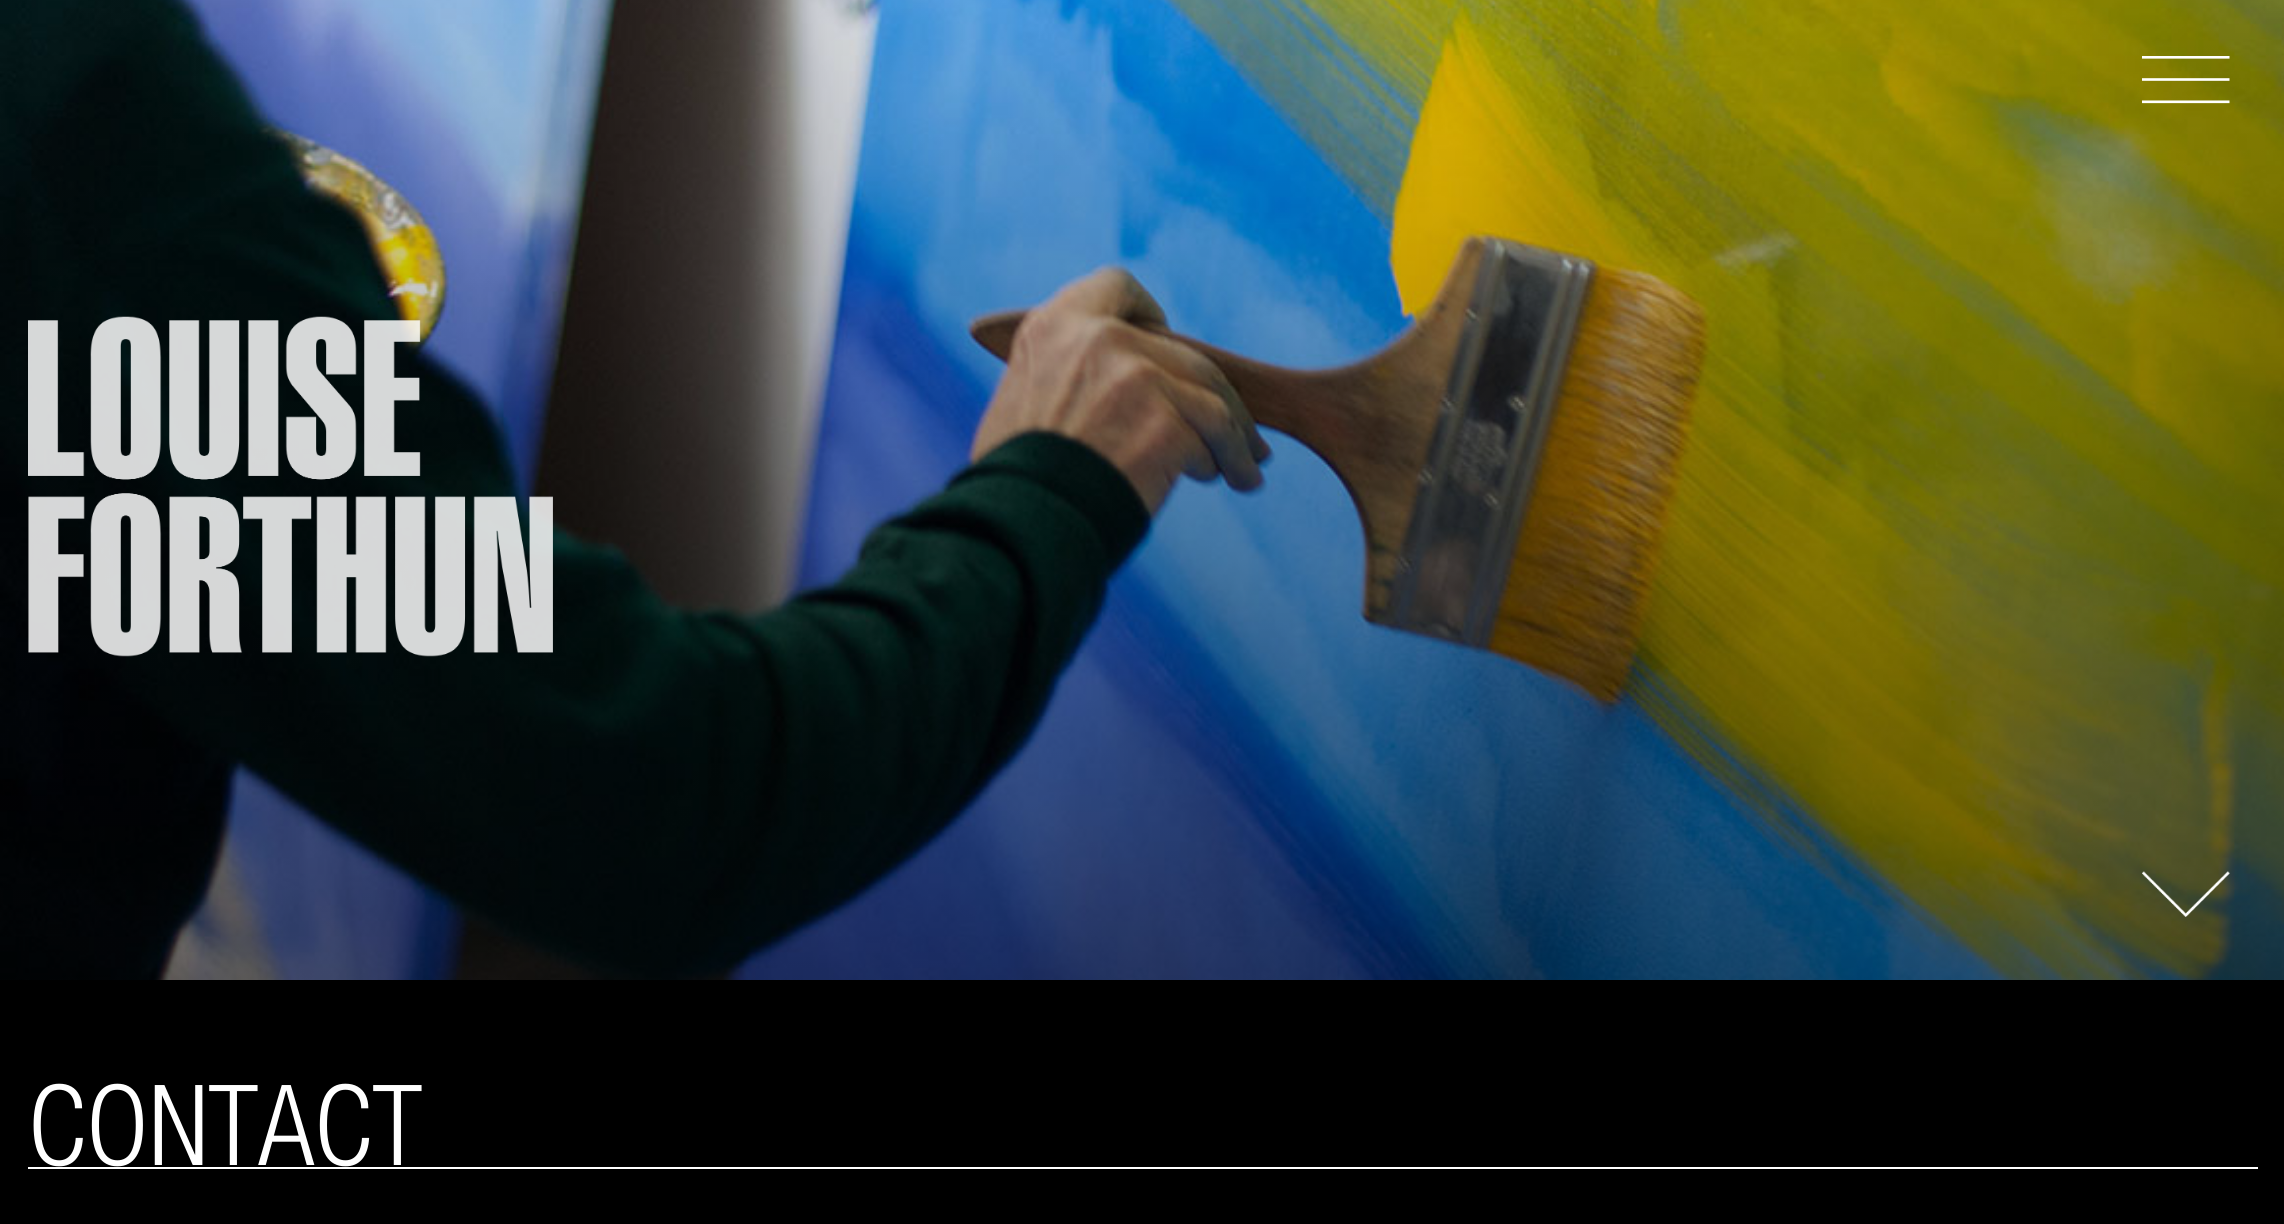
#include <cairo.h>
#include <math.h>
#include <stddef.h>


static void ink(cairo_t *ctx, unsigned color) {
    cairo_set_source_rgb(ctx, (color >> 16) / 255.0, (color >> 8 & 255) / 255.0, (color & 255) / 255.0);
}

static void paste(cairo_t *ctx, const char *path, double x, double y, double w, double h) {
    cairo_surface_t *image = cairo_image_surface_create_from_png(path);
    cairo_save(ctx);
    cairo_set_source_surface(ctx, image, x, y);
    cairo_rectangle(ctx, x, y, w, h);
    cairo_fill(ctx);
    cairo_restore(ctx);
    cairo_surface_destroy(image);
}

int main(void) {
    cairo_surface_t *surface = cairo_image_surface_create(CAIRO_FORMAT_RGB24, 2284, 1224);
    cairo_t *ctx = cairo_create(surface);
    cairo_font_options_t *options = cairo_font_options_create();
    cairo_font_options_set_hint_metrics(options, CAIRO_HINT_METRICS_OFF);
    cairo_font_options_set_hint_style(options, CAIRO_HINT_STYLE_NONE);
    cairo_set_font_options(ctx, options);
    cairo_set_miter_limit(ctx, 4);
    ink(ctx, 0x000000);
    cairo_paint(ctx);
    paste(ctx, "media/1.png", 0, 0, 2284, 980);
    paste(ctx, "media/2.png", 2142, 56, 88, 48);
    paste(ctx, "media/3.png", 28, 316, 525, 341);
    paste(ctx, "media/4.png", 2142, 871, 88, 46);
    ink(ctx, 0xFFFFFF);
    cairo_rectangle(ctx, 28, 1167, 2230, 2);
    cairo_fill(ctx);
    cairo_select_font_face(ctx, "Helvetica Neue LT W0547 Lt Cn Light", CAIRO_FONT_SLANT_NORMAL, CAIRO_FONT_WEIGHT_NORMAL);
    cairo_set_font_size(ctx, 112);
    cairo_move_to(ctx, 28, 1165);
    cairo_show_text(ctx, "CONTACT");
    cairo_surface_write_to_png(surface, "image.png");
    cairo_font_options_destroy(options);
    cairo_destroy(ctx);
    cairo_surface_destroy(surface);
    return 0;
}
